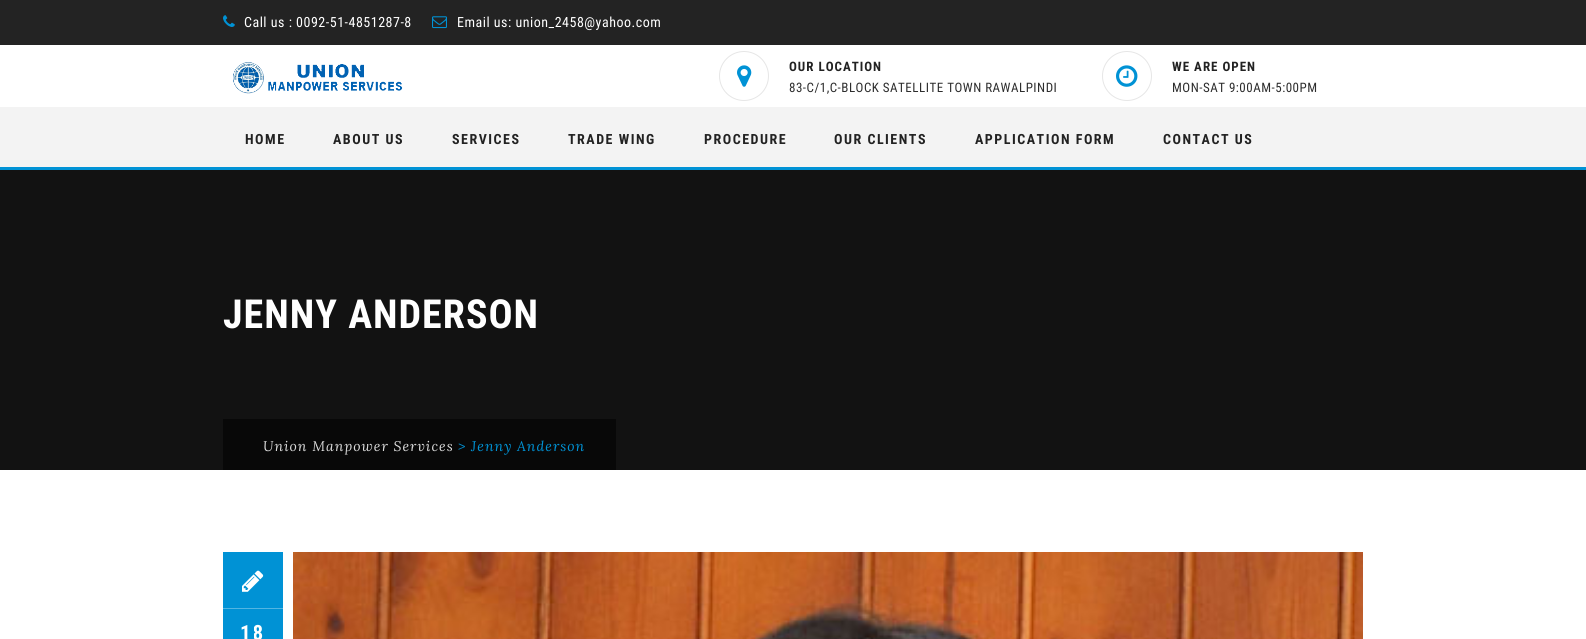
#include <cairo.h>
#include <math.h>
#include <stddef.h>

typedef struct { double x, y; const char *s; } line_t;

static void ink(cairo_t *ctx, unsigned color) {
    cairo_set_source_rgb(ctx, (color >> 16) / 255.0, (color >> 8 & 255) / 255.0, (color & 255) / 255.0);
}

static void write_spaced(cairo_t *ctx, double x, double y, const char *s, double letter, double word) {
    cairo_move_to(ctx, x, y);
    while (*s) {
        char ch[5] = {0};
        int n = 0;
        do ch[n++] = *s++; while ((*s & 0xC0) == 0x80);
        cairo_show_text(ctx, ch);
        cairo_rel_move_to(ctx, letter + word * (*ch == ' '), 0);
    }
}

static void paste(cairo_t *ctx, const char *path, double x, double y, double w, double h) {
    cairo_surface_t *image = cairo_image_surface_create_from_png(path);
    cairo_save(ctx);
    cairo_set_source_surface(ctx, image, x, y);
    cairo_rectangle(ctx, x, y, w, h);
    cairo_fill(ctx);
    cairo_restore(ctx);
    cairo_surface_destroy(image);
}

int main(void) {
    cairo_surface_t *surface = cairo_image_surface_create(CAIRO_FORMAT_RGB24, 1586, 639);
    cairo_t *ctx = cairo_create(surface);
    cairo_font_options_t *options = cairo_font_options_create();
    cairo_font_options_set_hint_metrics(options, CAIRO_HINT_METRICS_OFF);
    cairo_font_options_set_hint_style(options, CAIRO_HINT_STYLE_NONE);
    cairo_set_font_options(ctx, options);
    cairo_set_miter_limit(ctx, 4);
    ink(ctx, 0xFFFFFF);
    cairo_paint(ctx);
    ink(ctx, 0x232323);
    cairo_rectangle(ctx, 0, 0, 1586, 45);
    cairo_fill(ctx);
    paste(ctx, "media/1.png", 223, 15, 12, 12);
    cairo_select_font_face(ctx, "Roboto Condensed", CAIRO_FONT_SLANT_NORMAL, CAIRO_FONT_WEIGHT_NORMAL);
    cairo_set_font_size(ctx, 14);
    ink(ctx, 0xFFFFFF);
    write_spaced(ctx, 244, 27, "Call us : 0092-51-4851287-8", 0.5, 0);
    paste(ctx, "media/2.png", 432, 16, 15, 13);
    write_spaced(ctx, 457, 27, "Email us: union_2458@yahoo.com", 0.5, 0);
    paste(ctx, "media/3.png", 233, 62, 170, 32);
    cairo_arc(ctx, 744, 76, 24.5, 0, 2 * M_PI);
    ink(ctx, 0xE6E6E6);
    cairo_set_line_width(ctx, 1);
    cairo_stroke(ctx);
    paste(ctx, "media/4.png", 737, 65, 15, 22);
    cairo_select_font_face(ctx, "Roboto Condensed", CAIRO_FONT_SLANT_NORMAL, CAIRO_FONT_WEIGHT_BOLD);
    cairo_set_font_size(ctx, 13);
    ink(ctx, 0x222222);
    write_spaced(ctx, 789, 71, "OUR LOCATION", 1, 0);
    cairo_select_font_face(ctx, "Roboto Condensed", CAIRO_FONT_SLANT_NORMAL, CAIRO_FONT_WEIGHT_NORMAL);
    ink(ctx, 0x2D2D2D);
    write_spaced(ctx, 789, 92, "83-C/1,C-BLOCK SATELLITE TOWN RAWALPINDI", 0.5, 0);
    cairo_new_path(ctx);
    cairo_arc(ctx, 1127, 76, 24.5, 0, 2 * M_PI);
    ink(ctx, 0xE6E6E6);
    cairo_stroke(ctx);
    paste(ctx, "media/5.png", 1116, 65, 22, 22);
    cairo_select_font_face(ctx, "Roboto Condensed", CAIRO_FONT_SLANT_NORMAL, CAIRO_FONT_WEIGHT_BOLD);
    ink(ctx, 0x222222);
    write_spaced(ctx, 1172, 71, "WE ARE OPEN", 1, 0);
    cairo_select_font_face(ctx, "Roboto Condensed", CAIRO_FONT_SLANT_NORMAL, CAIRO_FONT_WEIGHT_NORMAL);
    ink(ctx, 0x2D2D2D);
    write_spaced(ctx, 1172, 92, "MON-SAT 9:00AM-5:00PM", 0.5, 0);
    ink(ctx, 0xF3F3F3);
    cairo_rectangle(ctx, 0, 107, 1586, 60);
    cairo_fill(ctx);
    ink(ctx, 0x0092D5);
    cairo_rectangle(ctx, 0, 167, 1586, 3);
    cairo_fill(ctx);
    cairo_select_font_face(ctx, "Roboto Condensed", CAIRO_FONT_SLANT_NORMAL, CAIRO_FONT_WEIGHT_BOLD);
    cairo_set_font_size(ctx, 14);
    ink(ctx, 0x222222);
    {
        static const line_t items[] = {
            {245, 144, "HOME"},
            {333, 144, "ABOUT US"},
            {452, 144, "SERVICES"},
            {568, 144, "TRADE WING"},
            {704, 144, "PROCEDURE"},
            {834, 144, "OUR CLIENTS"},
            {975, 144, "APPLICATION FORM"},
            {1163, 144, "CONTACT US"},
        };
        for (size_t i = 0; i < sizeof items / sizeof *items; i++) {
            write_spaced(ctx, items[i].x, items[i].y, items[i].s, 1.5, 0);
        }
    }
    ink(ctx, 0x121212);
    cairo_rectangle(ctx, 0, 170, 1586, 300);
    cairo_fill(ctx);
    cairo_set_font_size(ctx, 40);
    ink(ctx, 0xFFFFFF);
    write_spaced(ctx, 223, 328, "JENNY ANDERSON", 1, 0);
    ink(ctx, 0x080808);
    cairo_rectangle(ctx, 223, 419, 393, 51);
    cairo_fill(ctx);
    cairo_select_font_face(ctx, "Lora", CAIRO_FONT_SLANT_ITALIC, CAIRO_FONT_WEIGHT_NORMAL);
    cairo_set_font_size(ctx, 14);
    ink(ctx, 0xDCDCDC);
    write_spaced(ctx, 263, 451, "Union Manpower Services", 1, 0);
    ink(ctx, 0x0092D5);
    write_spaced(ctx, 458, 451, "> Jenny Anderson", 1, 0);
    cairo_rectangle(ctx, 223, 552, 60, 87);
    cairo_fill(ctx);
    ink(ctx, 0x52B5E2);
    cairo_rectangle(ctx, 223, 608, 60, 1);
    cairo_fill(ctx);
    paste(ctx, "media/6.png", 242, 570, 22, 22);
    cairo_select_font_face(ctx, "Roboto Condensed", CAIRO_FONT_SLANT_NORMAL, CAIRO_FONT_WEIGHT_BOLD);
    cairo_set_font_size(ctx, 21);
    ink(ctx, 0xFFFFFF);
    write_spaced(ctx, 240, 640, "18", 2, 0);
    paste(ctx, "media/7.png", 293, 552, 1070, 87);
    cairo_surface_write_to_png(surface, "image.png");
    cairo_font_options_destroy(options);
    cairo_destroy(ctx);
    cairo_surface_destroy(surface);
    return 0;
}
